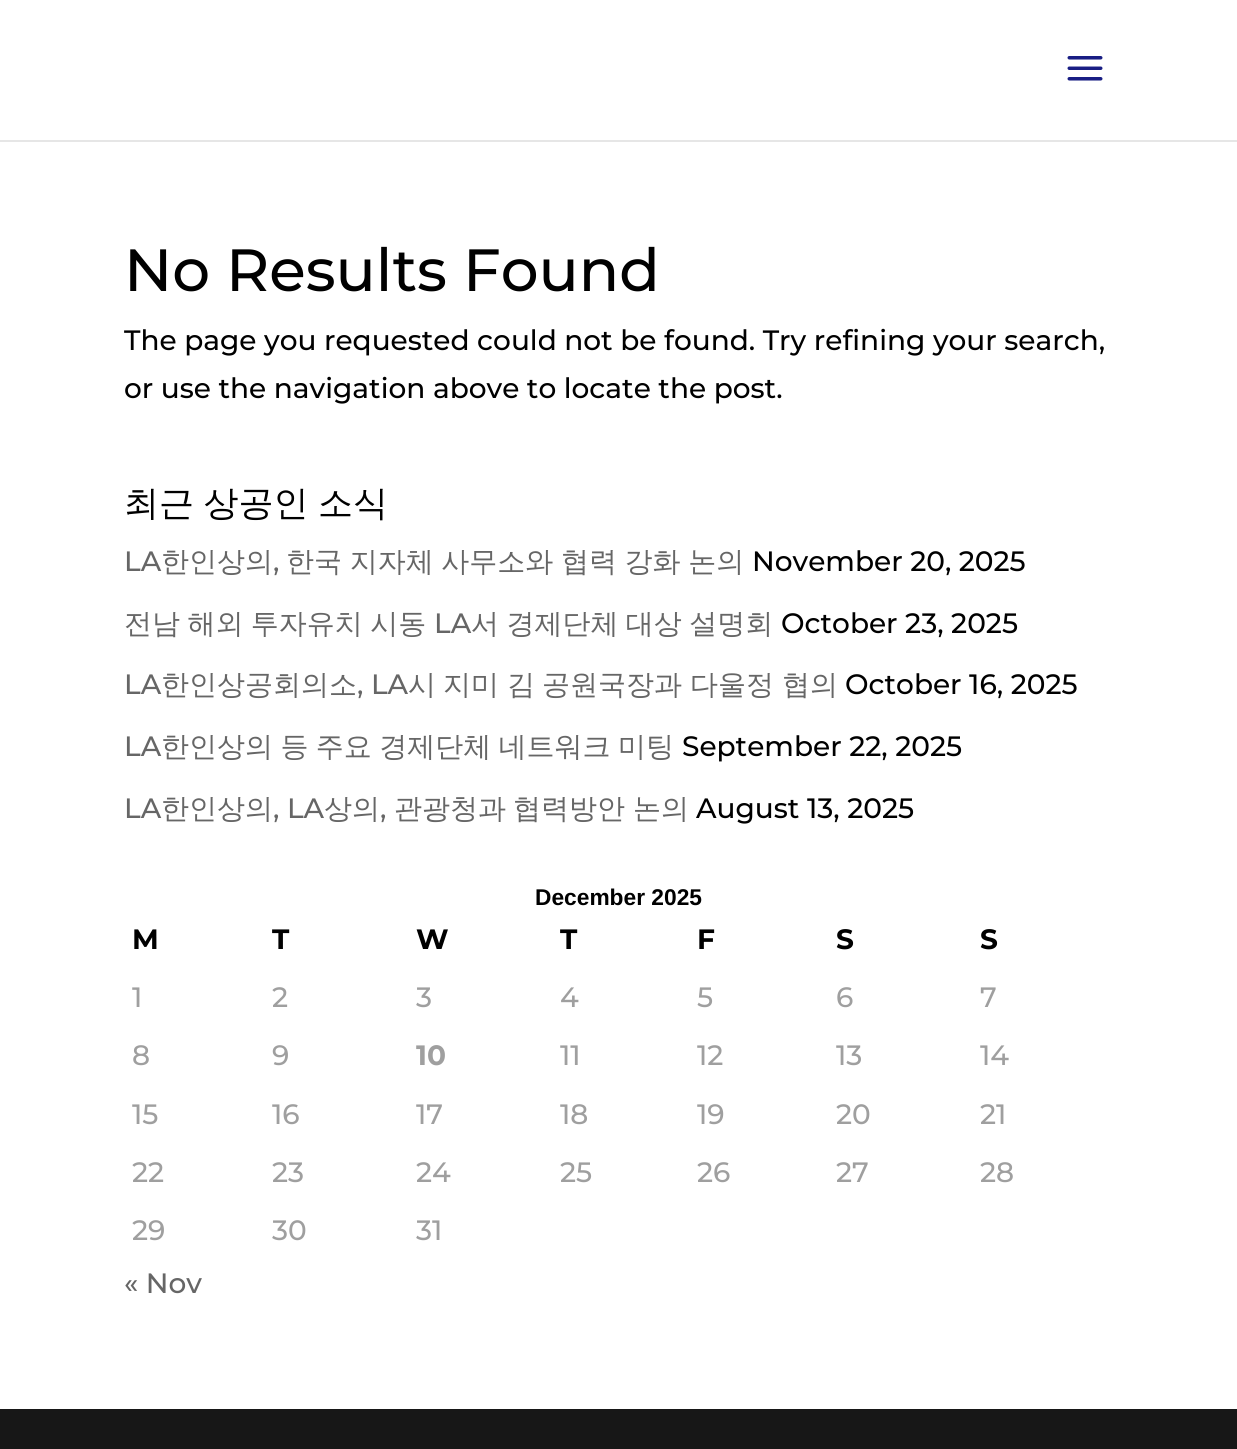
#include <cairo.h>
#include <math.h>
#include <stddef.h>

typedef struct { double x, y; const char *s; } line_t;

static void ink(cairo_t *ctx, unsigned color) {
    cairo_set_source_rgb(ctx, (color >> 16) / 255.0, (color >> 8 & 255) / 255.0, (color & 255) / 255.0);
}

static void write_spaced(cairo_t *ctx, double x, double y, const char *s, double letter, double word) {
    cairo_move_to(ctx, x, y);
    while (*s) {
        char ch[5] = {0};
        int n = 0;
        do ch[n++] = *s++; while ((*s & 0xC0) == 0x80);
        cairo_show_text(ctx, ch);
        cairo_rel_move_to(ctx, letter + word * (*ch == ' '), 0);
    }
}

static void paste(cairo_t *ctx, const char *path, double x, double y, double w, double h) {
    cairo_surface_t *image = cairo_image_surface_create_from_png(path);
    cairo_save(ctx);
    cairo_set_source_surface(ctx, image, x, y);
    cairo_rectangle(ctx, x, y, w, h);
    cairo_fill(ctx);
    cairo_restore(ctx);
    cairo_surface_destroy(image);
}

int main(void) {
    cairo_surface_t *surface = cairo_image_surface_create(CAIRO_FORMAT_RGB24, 1237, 1449);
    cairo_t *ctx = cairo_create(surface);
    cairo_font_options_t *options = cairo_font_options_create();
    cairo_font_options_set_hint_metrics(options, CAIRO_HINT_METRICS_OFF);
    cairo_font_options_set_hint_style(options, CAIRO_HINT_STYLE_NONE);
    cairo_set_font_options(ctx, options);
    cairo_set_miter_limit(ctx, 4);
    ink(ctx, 0xFFFFFF);
    cairo_paint(ctx);
    ink(ctx, 0xE6E6E6);
    cairo_rectangle(ctx, 0, 140, 1237, 2);
    cairo_fill(ctx);
    paste(ctx, "media/1.png", 1067, 56, 36, 25);
    cairo_select_font_face(ctx, "Montserrat Medium", CAIRO_FONT_SLANT_NORMAL, CAIRO_FONT_WEIGHT_NORMAL);
    cairo_set_font_size(ctx, 59.5);
    ink(ctx, 0x000000);
    cairo_move_to(ctx, 124, 291);
    cairo_show_text(ctx, "No Results Found");
    cairo_set_font_size(ctx, 28);
    cairo_move_to(ctx, 124, 350);
    cairo_show_text(ctx, "The page you requested could not be found. Try refining your search,");
    cairo_move_to(ctx, 124, 398);
    cairo_show_text(ctx, "or use the navigation above to locate the post.");
    cairo_select_font_face(ctx, "WenQuanYi Zen Hei Medium", CAIRO_FONT_SLANT_NORMAL, CAIRO_FONT_WEIGHT_NORMAL);
    cairo_set_font_size(ctx, 35);
    write_spaced(ctx, 124, 515, "최근 상공인 소식", 0, -1);
    cairo_select_font_face(ctx, "Montserrat Medium", CAIRO_FONT_SLANT_NORMAL, CAIRO_FONT_WEIGHT_NORMAL);
    cairo_set_font_size(ctx, 28);
    ink(ctx, 0x666666);
    cairo_move_to(ctx, 124, 571);
    cairo_show_text(ctx, "LA");
    cairo_select_font_face(ctx, "WenQuanYi Zen Hei Medium", CAIRO_FONT_SLANT_NORMAL, CAIRO_FONT_WEIGHT_NORMAL);
    cairo_move_to(ctx, 161, 571);
    cairo_show_text(ctx, "한인상의");
    cairo_select_font_face(ctx, "Montserrat Medium", CAIRO_FONT_SLANT_NORMAL, CAIRO_FONT_WEIGHT_NORMAL);
    cairo_move_to(ctx, 273, 571);
    cairo_show_text(ctx, ",");
    cairo_select_font_face(ctx, "WenQuanYi Zen Hei Medium", CAIRO_FONT_SLANT_NORMAL, CAIRO_FONT_WEIGHT_NORMAL);
    write_spaced(ctx, 286, 571, "한국 지자체 사무소와 협력 강화 논의", 0, -0.75);
    cairo_select_font_face(ctx, "Montserrat Medium", CAIRO_FONT_SLANT_NORMAL, CAIRO_FONT_WEIGHT_NORMAL);
    ink(ctx, 0x000000);
    cairo_move_to(ctx, 752, 571);
    cairo_show_text(ctx, "November 20, 2025");
    cairo_select_font_face(ctx, "WenQuanYi Zen Hei Medium", CAIRO_FONT_SLANT_NORMAL, CAIRO_FONT_WEIGHT_NORMAL);
    ink(ctx, 0x666666);
    write_spaced(ctx, 124, 633, "전남 해외 투자유치 시동", 0, -1);
    cairo_select_font_face(ctx, "Montserrat Medium", CAIRO_FONT_SLANT_NORMAL, CAIRO_FONT_WEIGHT_NORMAL);
    cairo_move_to(ctx, 434, 633);
    cairo_show_text(ctx, "LA");
    cairo_select_font_face(ctx, "WenQuanYi Zen Hei Medium", CAIRO_FONT_SLANT_NORMAL, CAIRO_FONT_WEIGHT_NORMAL);
    write_spaced(ctx, 471, 633, "서 경제단체 대상 설명회", 0, -1);
    cairo_select_font_face(ctx, "Montserrat Medium", CAIRO_FONT_SLANT_NORMAL, CAIRO_FONT_WEIGHT_NORMAL);
    ink(ctx, 0x000000);
    cairo_move_to(ctx, 781, 633);
    cairo_show_text(ctx, "October 23, 2025");
    ink(ctx, 0x666666);
    cairo_move_to(ctx, 124, 694);
    cairo_show_text(ctx, "LA");
    cairo_select_font_face(ctx, "WenQuanYi Zen Hei Medium", CAIRO_FONT_SLANT_NORMAL, CAIRO_FONT_WEIGHT_NORMAL);
    cairo_move_to(ctx, 161, 694);
    cairo_show_text(ctx, "한인상공회의소");
    cairo_select_font_face(ctx, "Montserrat Medium", CAIRO_FONT_SLANT_NORMAL, CAIRO_FONT_WEIGHT_NORMAL);
    cairo_move_to(ctx, 357, 694);
    cairo_show_text(ctx, ", LA");
    cairo_select_font_face(ctx, "WenQuanYi Zen Hei Medium", CAIRO_FONT_SLANT_NORMAL, CAIRO_FONT_WEIGHT_NORMAL);
    {
        static const line_t items[] = {
            {408, 694, "시"},
            {443, 694, "지미"},
            {507, 694, "김"},
            {542, 694, "공원국장과"},
            {690, 694, "다울정"},
            {782, 694, "협의"},
        };
        for (size_t i = 0; i < sizeof items / sizeof *items; i++) {
            cairo_move_to(ctx, items[i].x, items[i].y);
            cairo_show_text(ctx, items[i].s);
        }
    }
    cairo_select_font_face(ctx, "Montserrat Medium", CAIRO_FONT_SLANT_NORMAL, CAIRO_FONT_WEIGHT_NORMAL);
    ink(ctx, 0x000000);
    cairo_move_to(ctx, 845, 694);
    cairo_show_text(ctx, "October 16, 2025");
    ink(ctx, 0x666666);
    cairo_move_to(ctx, 124, 756);
    cairo_show_text(ctx, "LA");
    cairo_select_font_face(ctx, "WenQuanYi Zen Hei Medium", CAIRO_FONT_SLANT_NORMAL, CAIRO_FONT_WEIGHT_NORMAL);
    write_spaced(ctx, 161, 756, "한인상의 등 주요 경제단체 네트워크 미팅", 0, -1);
    cairo_select_font_face(ctx, "Montserrat Medium", CAIRO_FONT_SLANT_NORMAL, CAIRO_FONT_WEIGHT_NORMAL);
    ink(ctx, 0x000000);
    cairo_move_to(ctx, 682, 756);
    cairo_show_text(ctx, "September 22, 2025");
    ink(ctx, 0x666666);
    cairo_move_to(ctx, 124, 818);
    cairo_show_text(ctx, "LA");
    cairo_select_font_face(ctx, "WenQuanYi Zen Hei Medium", CAIRO_FONT_SLANT_NORMAL, CAIRO_FONT_WEIGHT_NORMAL);
    cairo_move_to(ctx, 161, 818);
    cairo_show_text(ctx, "한인상의");
    cairo_select_font_face(ctx, "Montserrat Medium", CAIRO_FONT_SLANT_NORMAL, CAIRO_FONT_WEIGHT_NORMAL);
    cairo_move_to(ctx, 273, 818);
    cairo_show_text(ctx, ", LA");
    cairo_select_font_face(ctx, "WenQuanYi Zen Hei Medium", CAIRO_FONT_SLANT_NORMAL, CAIRO_FONT_WEIGHT_NORMAL);
    cairo_move_to(ctx, 324, 818);
    cairo_show_text(ctx, "상의");
    cairo_select_font_face(ctx, "Montserrat Medium", CAIRO_FONT_SLANT_NORMAL, CAIRO_FONT_WEIGHT_NORMAL);
    cairo_move_to(ctx, 380, 818);
    cairo_show_text(ctx, ",");
    cairo_select_font_face(ctx, "WenQuanYi Zen Hei Medium", CAIRO_FONT_SLANT_NORMAL, CAIRO_FONT_WEIGHT_NORMAL);
    {
        static const line_t items[] = {
            {394, 818, "관광청과"},
            {513, 818, "협력방안"},
            {633, 818, "논의"},
        };
        for (size_t i = 0; i < sizeof items / sizeof *items; i++) {
            cairo_move_to(ctx, items[i].x, items[i].y);
            cairo_show_text(ctx, items[i].s);
        }
    }
    cairo_select_font_face(ctx, "Montserrat Medium", CAIRO_FONT_SLANT_NORMAL, CAIRO_FONT_WEIGHT_NORMAL);
    ink(ctx, 0x000000);
    cairo_move_to(ctx, 696, 818);
    cairo_show_text(ctx, "August 13, 2025");
    cairo_select_font_face(ctx, "Liberation Sans", CAIRO_FONT_SLANT_NORMAL, CAIRO_FONT_WEIGHT_BOLD);
    cairo_set_font_size(ctx, 22.75);
    cairo_move_to(ctx, 535, 905);
    cairo_show_text(ctx, "December 2025");
    cairo_select_font_face(ctx, "Montserrat", CAIRO_FONT_SLANT_NORMAL, CAIRO_FONT_WEIGHT_BOLD);
    cairo_set_font_size(ctx, 28);
    {
        static const line_t items[] = {
            {132, 949, "M"},
            {272, 949, "T"},
            {416, 949, "W"},
            {560, 949, "T"},
            {697, 949, "F"},
            {836, 949, "S"},
            {980, 949, "S"},
        };
        for (size_t i = 0; i < sizeof items / sizeof *items; i++) {
            cairo_move_to(ctx, items[i].x, items[i].y);
            cairo_show_text(ctx, items[i].s);
        }
    }
    cairo_select_font_face(ctx, "Montserrat Medium", CAIRO_FONT_SLANT_NORMAL, CAIRO_FONT_WEIGHT_NORMAL);
    ink(ctx, 0x9F9F9F);
    {
        static const line_t items[] = {
            {132, 1007, "1"},
            {272, 1007, "2"},
            {416, 1007, "3"},
            {560, 1007, "4"},
            {697, 1007, "5"},
            {836, 1007, "6"},
            {980, 1007, "7"},
            {132, 1065, "8"},
            {272, 1065, "9"},
        };
        for (size_t i = 0; i < sizeof items / sizeof *items; i++) {
            cairo_move_to(ctx, items[i].x, items[i].y);
            cairo_show_text(ctx, items[i].s);
        }
    }
    cairo_select_font_face(ctx, "Montserrat", CAIRO_FONT_SLANT_NORMAL, CAIRO_FONT_WEIGHT_BOLD);
    cairo_move_to(ctx, 416, 1065);
    cairo_show_text(ctx, "10");
    cairo_select_font_face(ctx, "Montserrat Medium", CAIRO_FONT_SLANT_NORMAL, CAIRO_FONT_WEIGHT_NORMAL);
    {
        static const line_t items[] = {
            {560, 1065, "11"},
            {697, 1065, "12"},
            {836, 1065, "13"},
            {980, 1065, "14"},
            {132, 1124, "15"},
            {272, 1124, "16"},
            {416, 1124, "17"},
            {560, 1124, "18"},
            {697, 1124, "19"},
            {836, 1124, "20"},
            {980, 1124, "21"},
            {132, 1182, "22"},
            {272, 1182, "23"},
            {416, 1182, "24"},
            {560, 1182, "25"},
            {697, 1182, "26"},
            {836, 1182, "27"},
            {980, 1182, "28"},
            {132, 1240, "29"},
            {272, 1240, "30"},
            {416, 1240, "31"},
        };
        for (size_t i = 0; i < sizeof items / sizeof *items; i++) {
            cairo_move_to(ctx, items[i].x, items[i].y);
            cairo_show_text(ctx, items[i].s);
        }
    }
    ink(ctx, 0x666666);
    cairo_move_to(ctx, 124, 1293);
    cairo_show_text(ctx, "« Nov");
    ink(ctx, 0x171717);
    cairo_rectangle(ctx, 0, 1409, 1237, 40);
    cairo_fill(ctx);
    cairo_surface_write_to_png(surface, "image.png");
    cairo_font_options_destroy(options);
    cairo_destroy(ctx);
    cairo_surface_destroy(surface);
    return 0;
}
